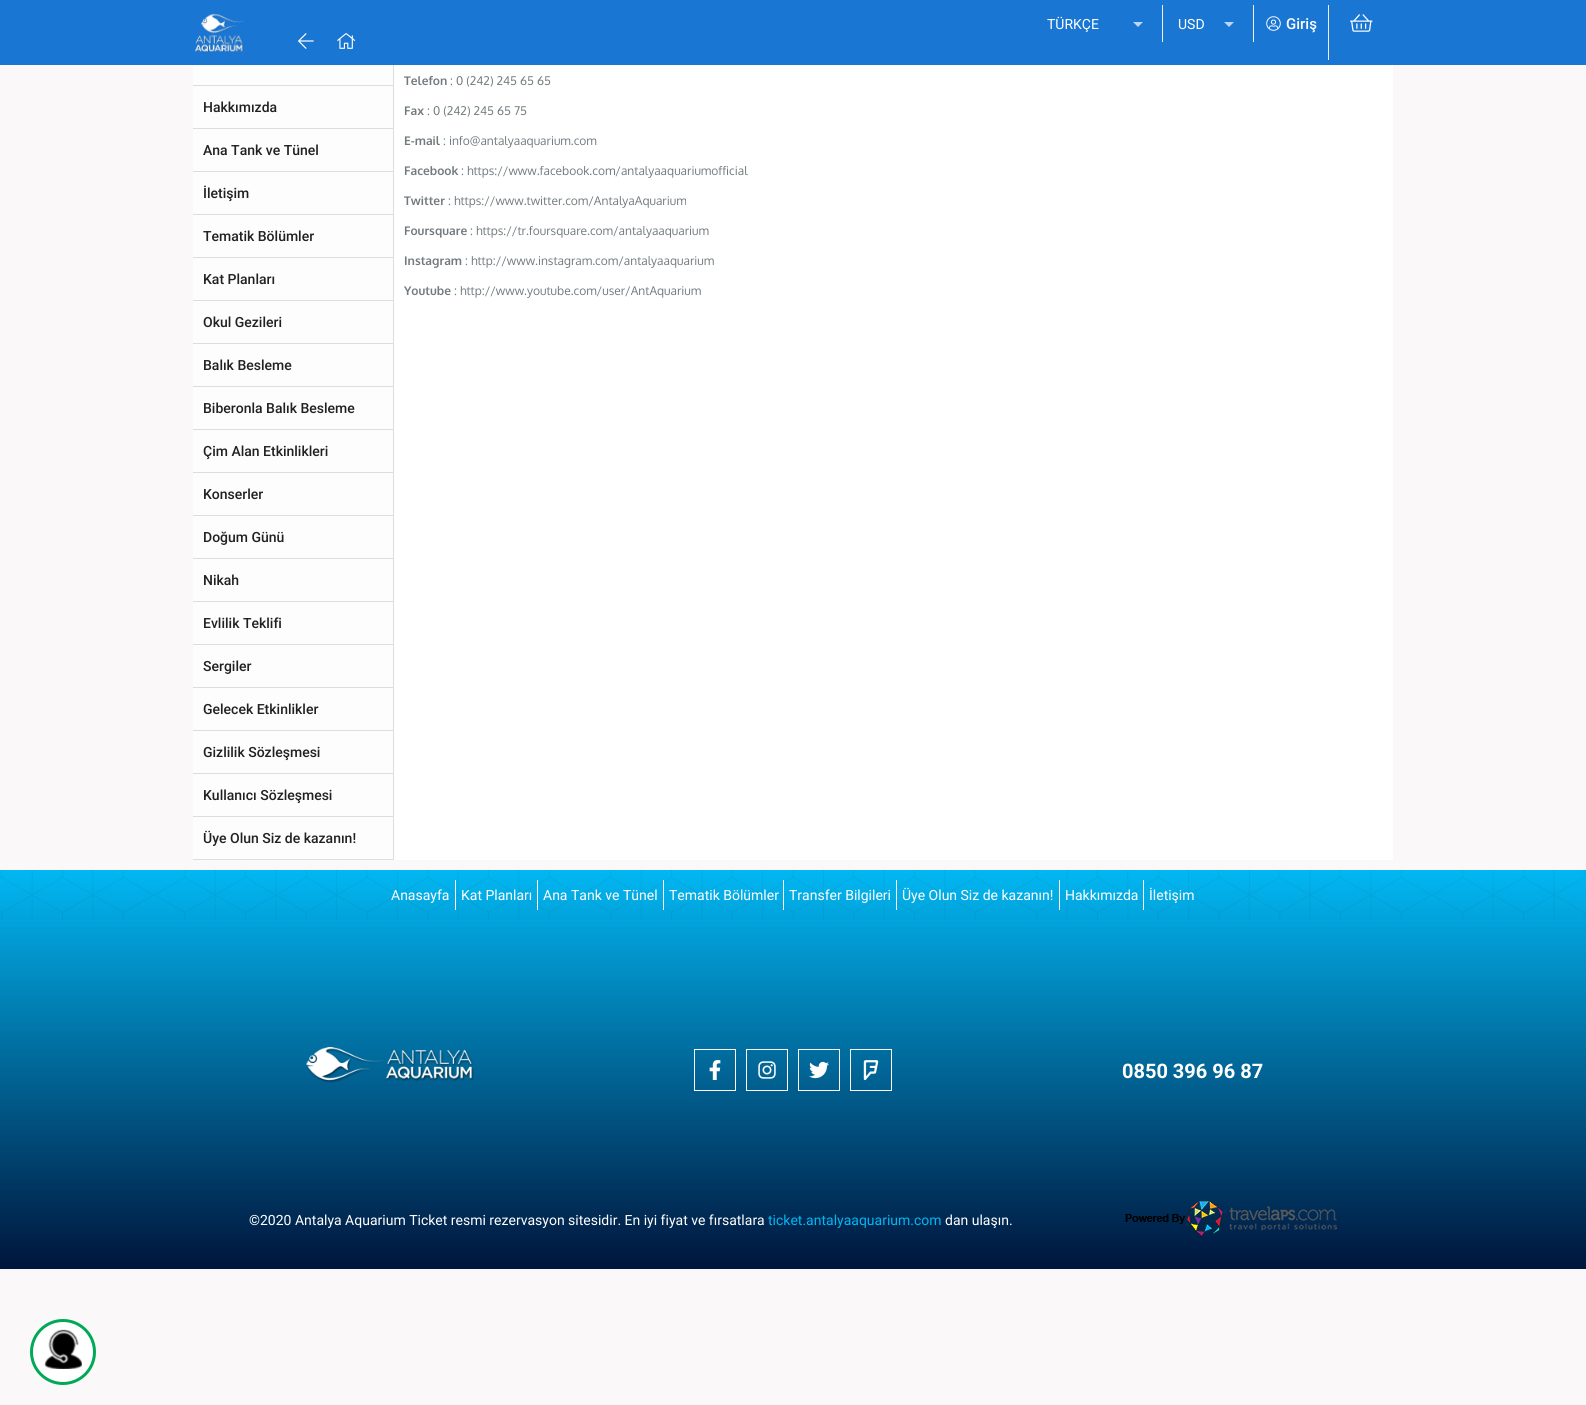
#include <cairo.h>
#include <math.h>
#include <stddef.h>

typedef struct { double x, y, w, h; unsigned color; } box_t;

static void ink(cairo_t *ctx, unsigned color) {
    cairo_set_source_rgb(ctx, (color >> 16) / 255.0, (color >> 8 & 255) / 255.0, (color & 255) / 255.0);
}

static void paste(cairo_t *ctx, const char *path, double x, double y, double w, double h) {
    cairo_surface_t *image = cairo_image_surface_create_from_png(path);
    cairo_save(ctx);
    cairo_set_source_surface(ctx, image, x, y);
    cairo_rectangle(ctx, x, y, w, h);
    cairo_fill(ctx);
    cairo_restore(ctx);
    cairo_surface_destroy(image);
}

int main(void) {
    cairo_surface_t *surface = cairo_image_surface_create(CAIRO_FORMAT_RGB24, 1586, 1405);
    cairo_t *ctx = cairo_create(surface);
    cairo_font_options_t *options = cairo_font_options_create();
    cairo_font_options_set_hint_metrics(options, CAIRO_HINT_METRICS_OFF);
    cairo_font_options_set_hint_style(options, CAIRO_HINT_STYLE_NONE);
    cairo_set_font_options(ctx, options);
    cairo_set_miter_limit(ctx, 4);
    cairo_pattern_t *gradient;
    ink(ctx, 0xFAF8F8);
    cairo_paint(ctx);
    ink(ctx, 0x1976D2);
    cairo_rectangle(ctx, 0, 0, 1586, 65);
    cairo_fill(ctx);
    paste(ctx, "media/1.png", 194, 13, 50, 40);
    paste(ctx, "media/2.png", 298, 33, 16, 16);
    paste(ctx, "media/3.png", 337, 33, 19, 16);
    ink(ctx, 0xEEEEEE);
    cairo_rectangle(ctx, 1162, 5, 1, 37);
    cairo_fill(ctx);
    cairo_select_font_face(ctx, "Roboto", CAIRO_FONT_SLANT_NORMAL, CAIRO_FONT_WEIGHT_NORMAL);
    cairo_set_font_size(ctx, 14);
    ink(ctx, 0xFFFFFF);
    cairo_move_to(ctx, 1047, 29);
    cairo_show_text(ctx, "TÜRKÇE");
    ink(ctx, 0xBAD6F2);
    cairo_new_path(ctx);
    cairo_move_to(ctx, 1133, 22);
    cairo_line_to(ctx, 1143, 22);
    cairo_line_to(ctx, 1138, 27);
    cairo_close_path(ctx);
    cairo_fill(ctx);
    ink(ctx, 0xEEEEEE);
    cairo_rectangle(ctx, 1253, 5, 1, 37);
    cairo_fill(ctx);
    ink(ctx, 0xFFFFFF);
    cairo_move_to(ctx, 1178, 29);
    cairo_show_text(ctx, "USD");
    ink(ctx, 0xBAD6F2);
    cairo_new_path(ctx);
    cairo_move_to(ctx, 1224, 22);
    cairo_line_to(ctx, 1234, 22);
    cairo_line_to(ctx, 1229, 27);
    cairo_close_path(ctx);
    cairo_fill(ctx);
    ink(ctx, 0xEEEEEE);
    cairo_rectangle(ctx, 1328, 5, 1, 55);
    cairo_fill(ctx);
    paste(ctx, "media/4.png", 1266, 16, 15, 15);
    cairo_select_font_face(ctx, "Roboto Medium", CAIRO_FONT_SLANT_NORMAL, CAIRO_FONT_WEIGHT_NORMAL);
    cairo_set_font_size(ctx, 15);
    ink(ctx, 0xFFFFFF);
    cairo_move_to(ctx, 1286, 29);
    cairo_show_text(ctx, "Giriş");
    paste(ctx, "media/5.png", 1350, 14, 23, 18);
    {
        static const box_t items[] = {
            {193, 85, 200, 1, 0xDDDDDD},
            {193, 65, 200, 20, 0xFDFDFD},
            {193, 128, 200, 1, 0xDDDDDD},
            {193, 86, 200, 42, 0xFDFDFD},
        };
        for (size_t i = 0; i < sizeof items / sizeof *items; i++) {
            ink(ctx, items[i].color);
            cairo_rectangle(ctx, items[i].x, items[i].y, items[i].w, items[i].h);
            cairo_fill(ctx);
        }
    }
    cairo_set_font_size(ctx, 14);
    ink(ctx, 0x212121);
    cairo_move_to(ctx, 203, 112);
    cairo_show_text(ctx, "Hakkımızda");
    ink(ctx, 0xDDDDDD);
    cairo_rectangle(ctx, 193, 171, 200, 1);
    cairo_fill(ctx);
    ink(ctx, 0xFDFDFD);
    cairo_rectangle(ctx, 193, 129, 200, 42);
    cairo_fill(ctx);
    ink(ctx, 0x212121);
    cairo_move_to(ctx, 203, 155);
    cairo_show_text(ctx, "Ana Tank ve Tünel");
    ink(ctx, 0xDDDDDD);
    cairo_rectangle(ctx, 193, 214, 200, 1);
    cairo_fill(ctx);
    ink(ctx, 0xFDFDFD);
    cairo_rectangle(ctx, 193, 172, 200, 42);
    cairo_fill(ctx);
    ink(ctx, 0x212121);
    cairo_move_to(ctx, 203, 198);
    cairo_show_text(ctx, "İletişim");
    ink(ctx, 0xDDDDDD);
    cairo_rectangle(ctx, 193, 257, 200, 1);
    cairo_fill(ctx);
    ink(ctx, 0xFDFDFD);
    cairo_rectangle(ctx, 193, 215, 200, 42);
    cairo_fill(ctx);
    ink(ctx, 0x212121);
    cairo_move_to(ctx, 203, 241);
    cairo_show_text(ctx, "Tematik Bölümler");
    ink(ctx, 0xDDDDDD);
    cairo_rectangle(ctx, 193, 300, 200, 1);
    cairo_fill(ctx);
    ink(ctx, 0xFDFDFD);
    cairo_rectangle(ctx, 193, 258, 200, 42);
    cairo_fill(ctx);
    ink(ctx, 0x212121);
    cairo_move_to(ctx, 203, 284);
    cairo_show_text(ctx, "Kat Planları");
    ink(ctx, 0xDDDDDD);
    cairo_rectangle(ctx, 193, 343, 200, 1);
    cairo_fill(ctx);
    ink(ctx, 0xFDFDFD);
    cairo_rectangle(ctx, 193, 301, 200, 42);
    cairo_fill(ctx);
    ink(ctx, 0x212121);
    cairo_move_to(ctx, 203, 327);
    cairo_show_text(ctx, "Okul Gezileri");
    ink(ctx, 0xDDDDDD);
    cairo_rectangle(ctx, 193, 386, 200, 1);
    cairo_fill(ctx);
    ink(ctx, 0xFDFDFD);
    cairo_rectangle(ctx, 193, 344, 200, 42);
    cairo_fill(ctx);
    ink(ctx, 0x212121);
    cairo_move_to(ctx, 203, 370);
    cairo_show_text(ctx, "Balık Besleme");
    ink(ctx, 0xDDDDDD);
    cairo_rectangle(ctx, 193, 429, 200, 1);
    cairo_fill(ctx);
    ink(ctx, 0xFDFDFD);
    cairo_rectangle(ctx, 193, 387, 200, 42);
    cairo_fill(ctx);
    ink(ctx, 0x212121);
    cairo_move_to(ctx, 203, 413);
    cairo_show_text(ctx, "Biberonla Balık Besleme");
    ink(ctx, 0xDDDDDD);
    cairo_rectangle(ctx, 193, 472, 200, 1);
    cairo_fill(ctx);
    ink(ctx, 0xFDFDFD);
    cairo_rectangle(ctx, 193, 430, 200, 42);
    cairo_fill(ctx);
    ink(ctx, 0x212121);
    cairo_move_to(ctx, 203, 456);
    cairo_show_text(ctx, "Çim Alan Etkinlikleri");
    ink(ctx, 0xDDDDDD);
    cairo_rectangle(ctx, 193, 515, 200, 1);
    cairo_fill(ctx);
    ink(ctx, 0xFDFDFD);
    cairo_rectangle(ctx, 193, 473, 200, 42);
    cairo_fill(ctx);
    ink(ctx, 0x212121);
    cairo_move_to(ctx, 203, 499);
    cairo_show_text(ctx, "Konserler");
    ink(ctx, 0xDDDDDD);
    cairo_rectangle(ctx, 193, 558, 200, 1);
    cairo_fill(ctx);
    ink(ctx, 0xFDFDFD);
    cairo_rectangle(ctx, 193, 516, 200, 42);
    cairo_fill(ctx);
    ink(ctx, 0x212121);
    cairo_move_to(ctx, 203, 542);
    cairo_show_text(ctx, "Doğum Günü");
    ink(ctx, 0xDDDDDD);
    cairo_rectangle(ctx, 193, 601, 200, 1);
    cairo_fill(ctx);
    ink(ctx, 0xFDFDFD);
    cairo_rectangle(ctx, 193, 559, 200, 42);
    cairo_fill(ctx);
    ink(ctx, 0x212121);
    cairo_move_to(ctx, 203, 585);
    cairo_show_text(ctx, "Nikah");
    ink(ctx, 0xDDDDDD);
    cairo_rectangle(ctx, 193, 644, 200, 1);
    cairo_fill(ctx);
    ink(ctx, 0xFDFDFD);
    cairo_rectangle(ctx, 193, 602, 200, 42);
    cairo_fill(ctx);
    ink(ctx, 0x212121);
    cairo_move_to(ctx, 203, 628);
    cairo_show_text(ctx, "Evlilik Teklifi");
    ink(ctx, 0xDDDDDD);
    cairo_rectangle(ctx, 193, 687, 200, 1);
    cairo_fill(ctx);
    ink(ctx, 0xFDFDFD);
    cairo_rectangle(ctx, 193, 645, 200, 42);
    cairo_fill(ctx);
    ink(ctx, 0x212121);
    cairo_move_to(ctx, 203, 671);
    cairo_show_text(ctx, "Sergiler");
    ink(ctx, 0xDDDDDD);
    cairo_rectangle(ctx, 193, 730, 200, 1);
    cairo_fill(ctx);
    ink(ctx, 0xFDFDFD);
    cairo_rectangle(ctx, 193, 688, 200, 42);
    cairo_fill(ctx);
    ink(ctx, 0x212121);
    cairo_move_to(ctx, 203, 714);
    cairo_show_text(ctx, "Gelecek Etkinlikler");
    ink(ctx, 0xDDDDDD);
    cairo_rectangle(ctx, 193, 773, 200, 1);
    cairo_fill(ctx);
    ink(ctx, 0xFDFDFD);
    cairo_rectangle(ctx, 193, 731, 200, 42);
    cairo_fill(ctx);
    ink(ctx, 0x212121);
    cairo_move_to(ctx, 203, 757);
    cairo_show_text(ctx, "Gizlilik Sözleşmesi");
    ink(ctx, 0xDDDDDD);
    cairo_rectangle(ctx, 193, 816, 200, 1);
    cairo_fill(ctx);
    ink(ctx, 0xFDFDFD);
    cairo_rectangle(ctx, 193, 774, 200, 42);
    cairo_fill(ctx);
    ink(ctx, 0x212121);
    cairo_move_to(ctx, 203, 800);
    cairo_show_text(ctx, "Kullanıcı Sözleşmesi");
    ink(ctx, 0xDDDDDD);
    cairo_rectangle(ctx, 193, 859, 200, 1);
    cairo_fill(ctx);
    ink(ctx, 0xFDFDFD);
    cairo_rectangle(ctx, 193, 817, 200, 42);
    cairo_fill(ctx);
    ink(ctx, 0x212121);
    cairo_move_to(ctx, 203, 843);
    cairo_show_text(ctx, "Üye Olun Siz de kazanın!");
    ink(ctx, 0xFFFFFF);
    cairo_rectangle(ctx, 394, 65, 999, 795);
    cairo_fill(ctx);
    ink(ctx, 0xDDDDDD);
    cairo_rectangle(ctx, 393, 65, 1, 795);
    cairo_fill(ctx);
    cairo_select_font_face(ctx, "Oxygen", CAIRO_FONT_SLANT_NORMAL, CAIRO_FONT_WEIGHT_BOLD);
    cairo_set_font_size(ctx, 12);
    ink(ctx, 0x727A7E);
    cairo_move_to(ctx, 404, 85);
    cairo_show_text(ctx, "Telefon");
    cairo_select_font_face(ctx, "Oxygen", CAIRO_FONT_SLANT_NORMAL, CAIRO_FONT_WEIGHT_NORMAL);
    cairo_move_to(ctx, 450, 85);
    cairo_show_text(ctx, ": 0 (242) 245 65 65");
    cairo_select_font_face(ctx, "Oxygen", CAIRO_FONT_SLANT_NORMAL, CAIRO_FONT_WEIGHT_BOLD);
    cairo_move_to(ctx, 404, 115);
    cairo_show_text(ctx, "Fax");
    cairo_select_font_face(ctx, "Oxygen", CAIRO_FONT_SLANT_NORMAL, CAIRO_FONT_WEIGHT_NORMAL);
    cairo_move_to(ctx, 427, 115);
    cairo_show_text(ctx, ": 0 (242) 245 65 75");
    cairo_select_font_face(ctx, "Oxygen", CAIRO_FONT_SLANT_NORMAL, CAIRO_FONT_WEIGHT_BOLD);
    cairo_move_to(ctx, 404, 145);
    cairo_show_text(ctx, "E-mail");
    cairo_select_font_face(ctx, "Oxygen", CAIRO_FONT_SLANT_NORMAL, CAIRO_FONT_WEIGHT_NORMAL);
    cairo_move_to(ctx, 443, 145);
    cairo_show_text(ctx, ": info@antalyaaquarium.com");
    cairo_select_font_face(ctx, "Oxygen", CAIRO_FONT_SLANT_NORMAL, CAIRO_FONT_WEIGHT_BOLD);
    cairo_move_to(ctx, 404, 175);
    cairo_show_text(ctx, "Facebook");
    cairo_select_font_face(ctx, "Oxygen", CAIRO_FONT_SLANT_NORMAL, CAIRO_FONT_WEIGHT_NORMAL);
    cairo_move_to(ctx, 461, 175);
    cairo_show_text(ctx, ": https://www.facebook.com/antalyaaquariumofficial");
    cairo_select_font_face(ctx, "Oxygen", CAIRO_FONT_SLANT_NORMAL, CAIRO_FONT_WEIGHT_BOLD);
    cairo_move_to(ctx, 404, 205);
    cairo_show_text(ctx, "Twitter");
    cairo_select_font_face(ctx, "Oxygen", CAIRO_FONT_SLANT_NORMAL, CAIRO_FONT_WEIGHT_NORMAL);
    cairo_move_to(ctx, 448, 205);
    cairo_show_text(ctx, ": https://www.twitter.com/AntalyaAquarium");
    cairo_select_font_face(ctx, "Oxygen", CAIRO_FONT_SLANT_NORMAL, CAIRO_FONT_WEIGHT_BOLD);
    cairo_move_to(ctx, 404, 235);
    cairo_show_text(ctx, "Foursquare");
    cairo_select_font_face(ctx, "Oxygen", CAIRO_FONT_SLANT_NORMAL, CAIRO_FONT_WEIGHT_NORMAL);
    cairo_move_to(ctx, 470, 235);
    cairo_show_text(ctx, ": https://tr.foursquare.com/antalyaaquarium");
    cairo_select_font_face(ctx, "Oxygen", CAIRO_FONT_SLANT_NORMAL, CAIRO_FONT_WEIGHT_BOLD);
    cairo_move_to(ctx, 404, 265);
    cairo_show_text(ctx, "Instagram");
    cairo_select_font_face(ctx, "Oxygen", CAIRO_FONT_SLANT_NORMAL, CAIRO_FONT_WEIGHT_NORMAL);
    cairo_move_to(ctx, 465, 265);
    cairo_show_text(ctx, ": http://www.instagram.com/antalyaaquarium");
    cairo_select_font_face(ctx, "Oxygen", CAIRO_FONT_SLANT_NORMAL, CAIRO_FONT_WEIGHT_BOLD);
    cairo_move_to(ctx, 404, 295);
    cairo_show_text(ctx, "Youtube");
    cairo_select_font_face(ctx, "Oxygen", CAIRO_FONT_SLANT_NORMAL, CAIRO_FONT_WEIGHT_NORMAL);
    cairo_move_to(ctx, 454, 295);
    cairo_show_text(ctx, ": http://www.youtube.com/user/AntAquarium");
    gradient = cairo_pattern_create_linear(793, 870, 793, 1269);
    cairo_pattern_add_color_stop_rgba(gradient, 0, 0.008, 0.718, 0.949, 1);
    cairo_pattern_add_color_stop_rgba(gradient, 1, 0, 0.082, 0.235, 1);
    cairo_set_source(ctx, gradient);
    cairo_pattern_destroy(gradient);
    cairo_rectangle(ctx, 0, 870, 1586, 399);
    cairo_fill(ctx);
    paste(ctx, "media/6.png", 0, 870, 1586, 50);
    ink(ctx, 0x02A6DE);
    cairo_rectangle(ctx, 0, 920, 1586, 1);
    cairo_fill(ctx);
    ink(ctx, 0xFFFFFF);
    cairo_rectangle(ctx, 455, 880, 1, 30);
    cairo_fill(ctx);
    cairo_select_font_face(ctx, "Roboto", CAIRO_FONT_SLANT_NORMAL, CAIRO_FONT_WEIGHT_NORMAL);
    cairo_set_font_size(ctx, 14);
    cairo_move_to(ctx, 391, 900);
    cairo_show_text(ctx, "Anasayfa");
    cairo_rectangle(ctx, 537, 880, 1, 30);
    cairo_fill(ctx);
    cairo_move_to(ctx, 461, 900);
    cairo_show_text(ctx, "Kat Planları");
    cairo_rectangle(ctx, 663, 880, 1, 30);
    cairo_fill(ctx);
    cairo_move_to(ctx, 543, 900);
    cairo_show_text(ctx, "Ana Tank ve Tünel");
    cairo_rectangle(ctx, 783, 880, 1, 30);
    cairo_fill(ctx);
    cairo_move_to(ctx, 669, 900);
    cairo_show_text(ctx, "Tematik Bölümler");
    cairo_rectangle(ctx, 896, 880, 1, 30);
    cairo_fill(ctx);
    cairo_move_to(ctx, 789, 900);
    cairo_show_text(ctx, "Transfer Bilgileri");
    cairo_rectangle(ctx, 1059, 880, 1, 30);
    cairo_fill(ctx);
    cairo_move_to(ctx, 902, 900);
    cairo_show_text(ctx, "Üye Olun Siz de kazanın!");
    cairo_rectangle(ctx, 1143, 880, 1, 30);
    cairo_fill(ctx);
    cairo_move_to(ctx, 1065, 900);
    cairo_show_text(ctx, "Hakkımızda");
    cairo_move_to(ctx, 1149, 900);
    cairo_show_text(ctx, "İletişim");
    paste(ctx, "media/7.png", 306, 1047, 168, 36);
    cairo_rectangle(ctx, 694.5, 1049.5, 41, 41);
    cairo_set_line_width(ctx, 1);
    cairo_stroke(ctx);
    paste(ctx, "media/8.png", 709, 1060, 12, 20);
    cairo_rectangle(ctx, 746.5, 1049.5, 41, 41);
    cairo_stroke(ctx);
    paste(ctx, "media/9.png", 758, 1061, 18, 18);
    cairo_rectangle(ctx, 798.5, 1049.5, 41, 41);
    cairo_stroke(ctx);
    paste(ctx, "media/10.png", 809, 1061, 20, 18);
    cairo_rectangle(ctx, 850.5, 1049.5, 41, 41);
    cairo_stroke(ctx);
    paste(ctx, "media/11.png", 863, 1060, 16, 21);
    cairo_select_font_face(ctx, "Roboto", CAIRO_FONT_SLANT_NORMAL, CAIRO_FONT_WEIGHT_BOLD);
    cairo_set_font_size(ctx, 20);
    cairo_move_to(ctx, 1122, 1078);
    cairo_show_text(ctx, "0850 396 96 87");
    cairo_select_font_face(ctx, "Roboto", CAIRO_FONT_SLANT_NORMAL, CAIRO_FONT_WEIGHT_NORMAL);
    cairo_set_font_size(ctx, 14);
    cairo_move_to(ctx, 249, 1225);
    cairo_show_text(ctx, "©2020 Antalya Aquarium Ticket resmi rezervasyon sitesidir. En iyi fiyat ve fırsatlara");
    ink(ctx, 0x01B7F2);
    cairo_move_to(ctx, 768, 1225);
    cairo_show_text(ctx, "ticket.antalyaaquarium.com");
    ink(ctx, 0xFFFFFF);
    cairo_move_to(ctx, 945, 1225);
    cairo_show_text(ctx, "dan ulaşın.");
    paste(ctx, "media/12.png", 1125, 1201, 212, 35);
    cairo_arc(ctx, 63, 1352, 31.5, 0, 2 * M_PI);
    cairo_fill_preserve(ctx);
    ink(ctx, 0x00A957);
    cairo_set_line_width(ctx, 3);
    cairo_stroke(ctx);
    paste(ctx, "media/13.png", 44, 1329, 38, 40);
    cairo_surface_write_to_png(surface, "image.png");
    cairo_font_options_destroy(options);
    cairo_destroy(ctx);
    cairo_surface_destroy(surface);
    return 0;
}
